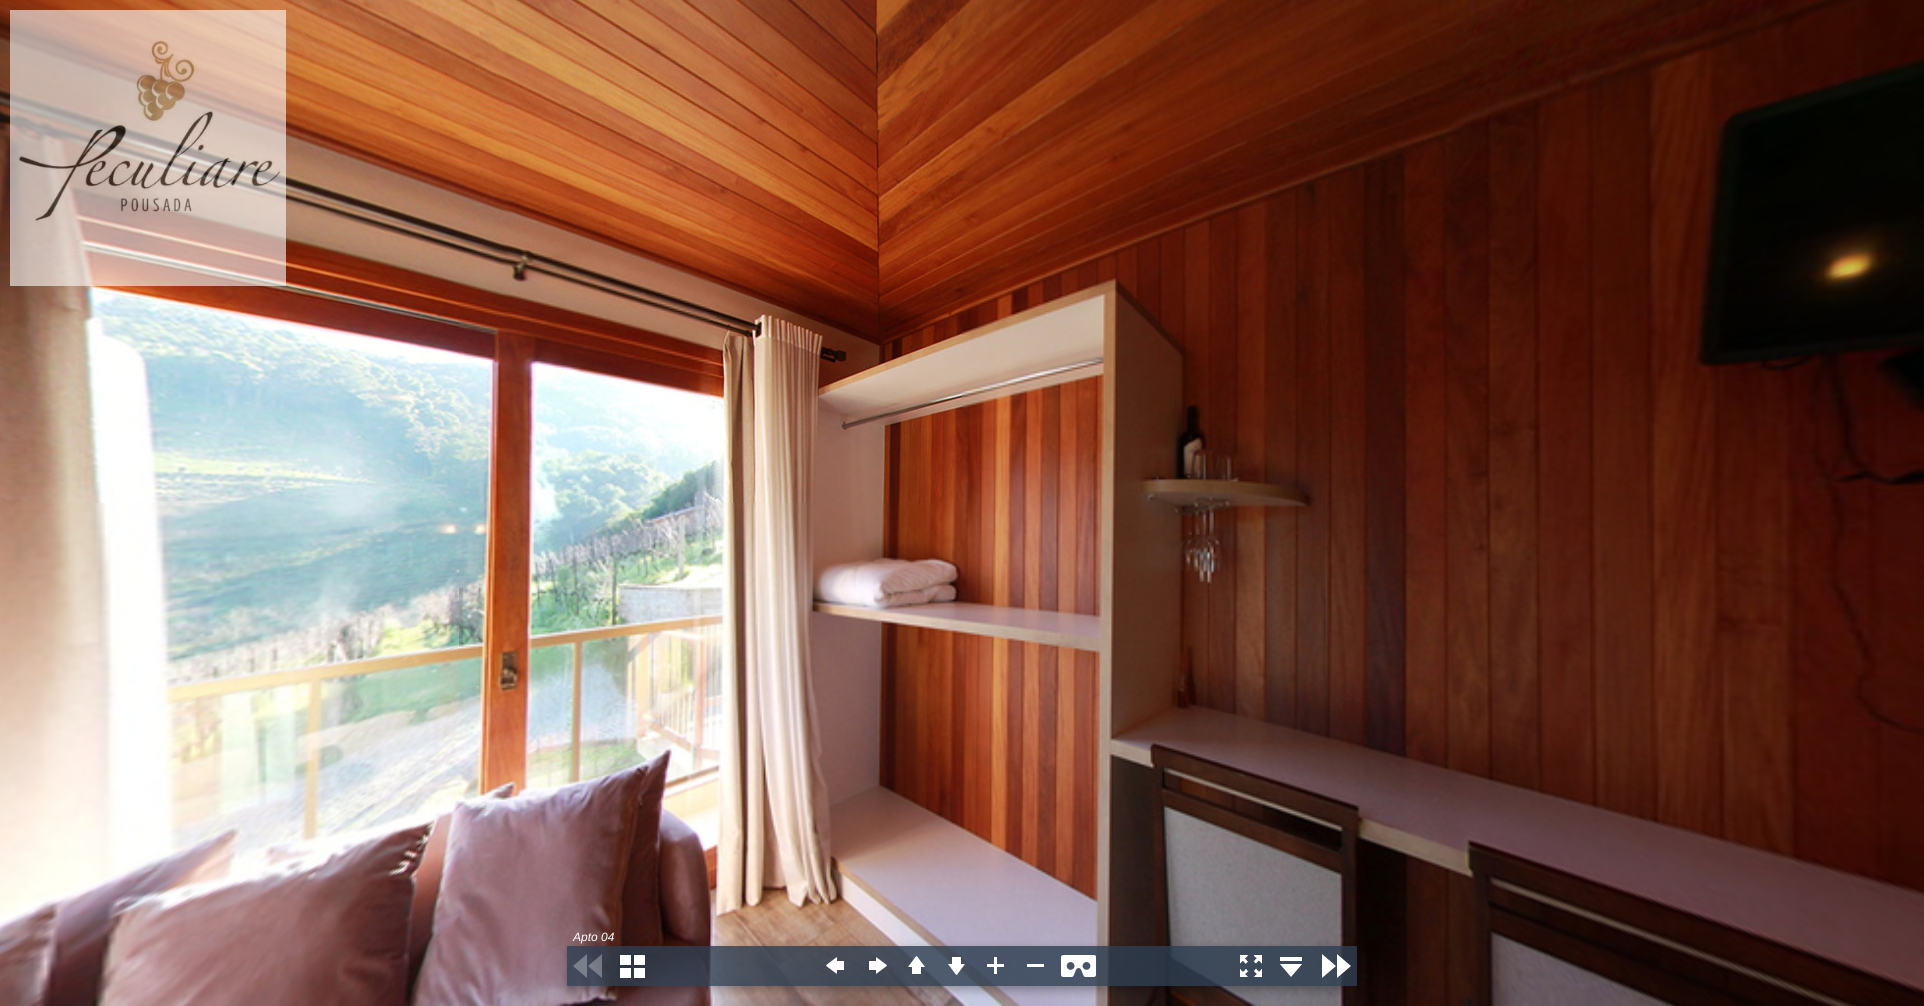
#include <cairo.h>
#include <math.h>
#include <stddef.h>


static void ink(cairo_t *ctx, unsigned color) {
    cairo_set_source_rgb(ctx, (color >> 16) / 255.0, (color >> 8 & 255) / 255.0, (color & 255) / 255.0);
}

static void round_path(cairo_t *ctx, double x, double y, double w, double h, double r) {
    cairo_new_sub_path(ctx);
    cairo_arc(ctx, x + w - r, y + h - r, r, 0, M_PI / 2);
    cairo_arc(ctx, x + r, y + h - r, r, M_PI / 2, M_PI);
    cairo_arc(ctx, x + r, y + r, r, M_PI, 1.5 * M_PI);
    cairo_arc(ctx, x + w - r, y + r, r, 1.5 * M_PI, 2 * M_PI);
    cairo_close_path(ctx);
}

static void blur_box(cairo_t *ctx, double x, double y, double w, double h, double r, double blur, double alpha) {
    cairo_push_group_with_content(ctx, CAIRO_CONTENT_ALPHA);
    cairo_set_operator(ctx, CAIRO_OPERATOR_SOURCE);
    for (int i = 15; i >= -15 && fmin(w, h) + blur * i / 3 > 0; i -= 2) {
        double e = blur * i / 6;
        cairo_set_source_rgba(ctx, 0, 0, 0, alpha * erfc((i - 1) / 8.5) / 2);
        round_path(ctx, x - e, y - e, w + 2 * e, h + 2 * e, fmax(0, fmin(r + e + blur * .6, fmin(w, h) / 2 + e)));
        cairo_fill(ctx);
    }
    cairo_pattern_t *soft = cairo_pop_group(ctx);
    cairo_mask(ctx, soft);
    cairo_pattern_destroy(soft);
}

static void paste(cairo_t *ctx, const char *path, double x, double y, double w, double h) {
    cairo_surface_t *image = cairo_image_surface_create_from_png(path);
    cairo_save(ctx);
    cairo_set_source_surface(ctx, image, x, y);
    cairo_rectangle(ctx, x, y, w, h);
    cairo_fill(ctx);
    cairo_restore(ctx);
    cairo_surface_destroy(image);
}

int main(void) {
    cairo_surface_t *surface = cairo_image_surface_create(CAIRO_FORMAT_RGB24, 1924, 1006);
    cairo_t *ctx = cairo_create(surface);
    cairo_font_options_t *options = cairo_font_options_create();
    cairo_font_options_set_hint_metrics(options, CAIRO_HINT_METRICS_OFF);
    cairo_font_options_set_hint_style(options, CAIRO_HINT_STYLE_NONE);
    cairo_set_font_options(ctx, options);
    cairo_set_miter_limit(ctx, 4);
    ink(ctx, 0xFFFFFF);
    cairo_paint(ctx);
    paste(ctx, "media/1.png", 0, 0, 1924, 1006);
    paste(ctx, "media/2.png", 10, 10, 276, 276);
    cairo_save(ctx);
    cairo_rectangle(ctx, 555, 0, 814, 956);
    cairo_clip(ctx);
    cairo_set_fill_rule(ctx, CAIRO_FILL_RULE_EVEN_ODD);
    cairo_new_path(ctx);
    cairo_move_to(ctx, 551, 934);
    cairo_line_to(ctx, 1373, 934);
    cairo_line_to(ctx, 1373, 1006);
    cairo_line_to(ctx, 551, 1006);
    cairo_close_path(ctx);
    cairo_move_to(ctx, 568, 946);
    cairo_line_to(ctx, 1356, 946);
    cairo_curve_to(ctx, 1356.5, 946, 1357, 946.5, 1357, 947);
    cairo_line_to(ctx, 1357, 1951);
    cairo_curve_to(ctx, 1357, 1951.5, 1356.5, 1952, 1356, 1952);
    cairo_line_to(ctx, 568, 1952);
    cairo_curve_to(ctx, 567.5, 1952, 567, 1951.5, 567, 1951);
    cairo_line_to(ctx, 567, 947);
    cairo_curve_to(ctx, 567, 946.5, 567.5, 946, 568, 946);
    cairo_close_path(ctx);
    cairo_clip(ctx);
    ink(ctx, 0x000000);
    blur_box(ctx, 567, 950, 790, 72, 1, 5, 0.3);
    cairo_restore(ctx);
    cairo_set_source_rgba(ctx, 0.176, 0.243, 0.314, 0.8);
    cairo_new_path(ctx);
    cairo_move_to(ctx, 568, 946);
    cairo_line_to(ctx, 1356, 946);
    cairo_curve_to(ctx, 1356.5, 946, 1357, 946.5, 1357, 947);
    cairo_line_to(ctx, 1357, 956);
    cairo_line_to(ctx, 567, 956);
    cairo_line_to(ctx, 567, 947);
    cairo_curve_to(ctx, 567, 946.5, 567.5, 946, 568, 946);
    cairo_close_path(ctx);
    cairo_fill(ctx);
    cairo_save(ctx);
    cairo_rectangle(ctx, 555, 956, 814, 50);
    cairo_clip(ctx);
    cairo_set_fill_rule(ctx, CAIRO_FILL_RULE_EVEN_ODD);
    cairo_new_path(ctx);
    cairo_move_to(ctx, 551, 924);
    cairo_line_to(ctx, 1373, 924);
    cairo_line_to(ctx, 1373, 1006);
    cairo_line_to(ctx, 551, 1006);
    cairo_close_path(ctx);
    cairo_move_to(ctx, 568, 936);
    cairo_line_to(ctx, 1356, 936);
    cairo_curve_to(ctx, 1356.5, 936, 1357, 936.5, 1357, 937);
    cairo_line_to(ctx, 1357, 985);
    cairo_curve_to(ctx, 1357, 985.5, 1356.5, 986, 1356, 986);
    cairo_line_to(ctx, 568, 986);
    cairo_curve_to(ctx, 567.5, 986, 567, 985.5, 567, 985);
    cairo_line_to(ctx, 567, 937);
    cairo_curve_to(ctx, 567, 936.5, 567.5, 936, 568, 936);
    cairo_close_path(ctx);
    cairo_clip(ctx);
    ink(ctx, 0x000000);
    blur_box(ctx, 567, 940, 790, 50, 1, 5, 0.3);
    cairo_restore(ctx);
    cairo_new_path(ctx);
    cairo_move_to(ctx, 567, 956);
    cairo_line_to(ctx, 1357, 956);
    cairo_line_to(ctx, 1357, 985);
    cairo_curve_to(ctx, 1357, 985.5, 1356.5, 986, 1356, 986);
    cairo_line_to(ctx, 568, 986);
    cairo_curve_to(ctx, 567.5, 986, 567, 985.5, 567, 985);
    cairo_close_path(ctx);
    cairo_fill(ctx);
    cairo_select_font_face(ctx, "Liberation Sans", CAIRO_FONT_SLANT_ITALIC, CAIRO_FONT_WEIGHT_NORMAL);
    cairo_set_font_size(ctx, 12);
    ink(ctx, 0xFFFFFF);
    cairo_move_to(ctx, 573, 941);
    cairo_show_text(ctx, "Apto 04");
    paste(ctx, "media/3.png", 573, 954, 29, 24);
    paste(ctx, "media/4.png", 620, 955, 25, 23);
    paste(ctx, "media/5.png", 826, 956, 18, 19);
    paste(ctx, "media/6.png", 869, 956, 18, 19);
    paste(ctx, "media/7.png", 907, 956, 19, 18);
    paste(ctx, "media/8.png", 947, 957, 19, 18);
    paste(ctx, "media/9.png", 987, 957, 17, 17);
    cairo_rectangle(ctx, 1027, 964, 17, 3);
    cairo_fill(ctx);
    paste(ctx, "media/10.png", 1061, 955, 35, 22);
    paste(ctx, "media/11.png", 1240, 955, 22, 22);
    paste(ctx, "media/12.png", 1280, 957, 22, 20);
    paste(ctx, "media/13.png", 1322, 954, 29, 24);
    cairo_surface_write_to_png(surface, "image.png");
    cairo_font_options_destroy(options);
    cairo_destroy(ctx);
    cairo_surface_destroy(surface);
    return 0;
}
